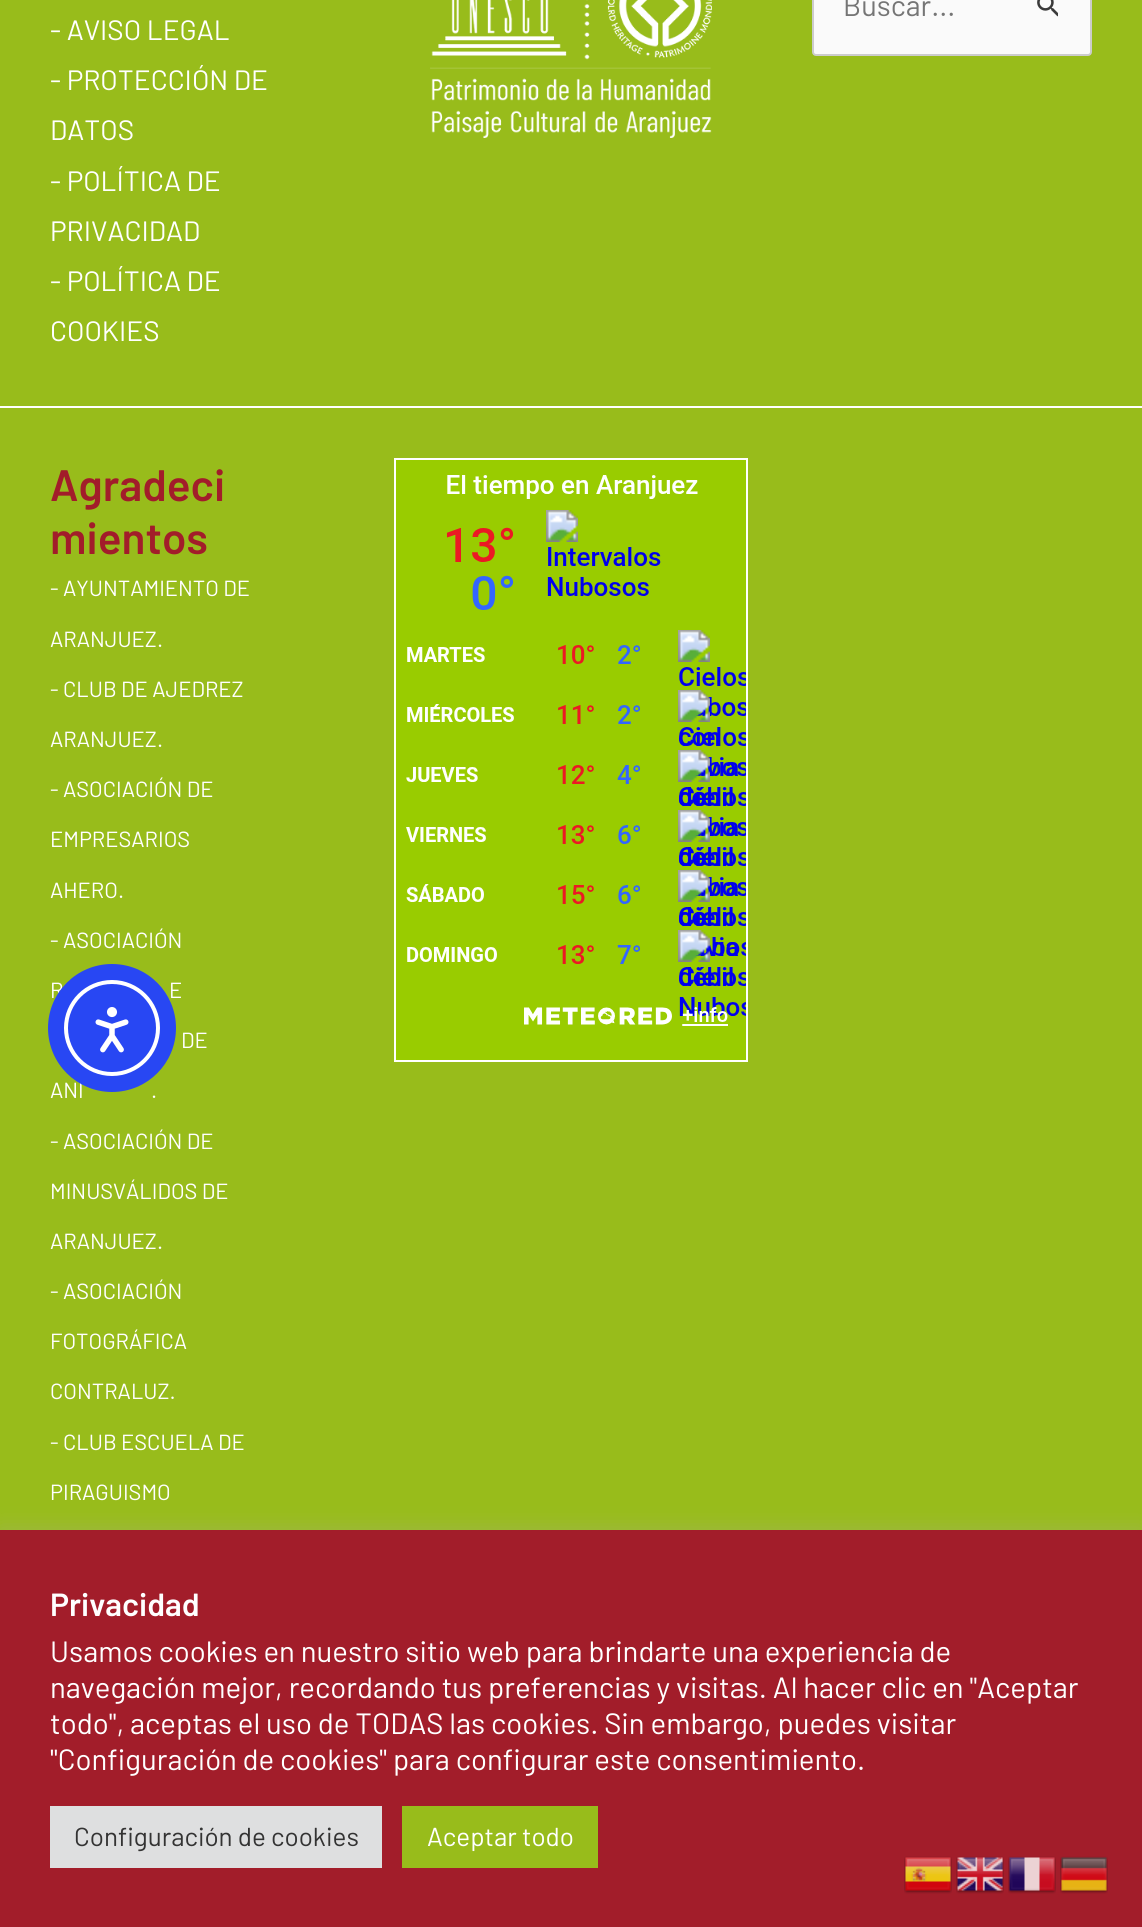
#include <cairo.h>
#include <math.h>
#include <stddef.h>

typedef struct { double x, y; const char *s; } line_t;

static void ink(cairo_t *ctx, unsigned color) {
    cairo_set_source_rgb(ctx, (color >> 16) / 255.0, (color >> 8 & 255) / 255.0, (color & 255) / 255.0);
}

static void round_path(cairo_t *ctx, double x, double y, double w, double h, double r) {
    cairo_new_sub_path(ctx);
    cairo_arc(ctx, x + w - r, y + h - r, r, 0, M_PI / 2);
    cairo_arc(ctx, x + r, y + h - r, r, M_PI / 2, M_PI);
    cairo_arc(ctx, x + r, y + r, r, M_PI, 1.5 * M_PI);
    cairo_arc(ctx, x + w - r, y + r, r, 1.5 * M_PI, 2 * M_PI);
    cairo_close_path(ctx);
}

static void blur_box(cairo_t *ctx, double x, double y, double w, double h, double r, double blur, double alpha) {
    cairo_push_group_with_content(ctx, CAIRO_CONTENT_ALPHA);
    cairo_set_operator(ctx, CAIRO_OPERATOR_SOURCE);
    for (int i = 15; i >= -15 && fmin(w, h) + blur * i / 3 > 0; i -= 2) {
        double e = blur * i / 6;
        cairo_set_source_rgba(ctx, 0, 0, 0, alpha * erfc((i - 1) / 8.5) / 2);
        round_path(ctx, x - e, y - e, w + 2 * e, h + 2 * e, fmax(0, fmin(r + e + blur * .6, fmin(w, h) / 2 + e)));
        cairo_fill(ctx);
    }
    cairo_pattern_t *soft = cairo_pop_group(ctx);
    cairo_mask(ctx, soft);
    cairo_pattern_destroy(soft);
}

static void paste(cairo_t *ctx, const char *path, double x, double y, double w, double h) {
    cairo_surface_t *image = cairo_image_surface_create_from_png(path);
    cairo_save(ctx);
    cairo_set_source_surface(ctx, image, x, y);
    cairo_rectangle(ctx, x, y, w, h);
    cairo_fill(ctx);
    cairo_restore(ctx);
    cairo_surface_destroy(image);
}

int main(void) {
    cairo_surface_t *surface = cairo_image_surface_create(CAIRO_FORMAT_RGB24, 1142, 1927);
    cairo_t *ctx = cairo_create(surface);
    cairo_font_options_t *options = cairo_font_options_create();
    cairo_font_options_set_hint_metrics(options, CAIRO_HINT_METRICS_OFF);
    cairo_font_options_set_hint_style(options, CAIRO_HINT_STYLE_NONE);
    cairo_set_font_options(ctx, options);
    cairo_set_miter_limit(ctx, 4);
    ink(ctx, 0xFFFFFF);
    cairo_paint(ctx);
    ink(ctx, 0x98BC1B);
    cairo_rectangle(ctx, 0, 0, 1142, 406);
    cairo_fill(ctx);
    paste(ctx, "media/1.png", 430, 0, 282, 138);
    ink(ctx, 0xFAFAFA);
    round_path(ctx, 813, -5, 278, 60, 3);
    cairo_fill_preserve(ctx);
    ink(ctx, 0xCCCCCC);
    cairo_stroke(ctx);
    cairo_select_font_face(ctx, "Barlow", CAIRO_FONT_SLANT_NORMAL, CAIRO_FONT_WEIGHT_NORMAL);
    cairo_set_font_size(ctx, 29);
    ink(ctx, 0x757575);
    cairo_move_to(ctx, 843, 16);
    cairo_show_text(ctx, "Buscar...");
    paste(ctx, "media/2.png", 1037, 0, 21, 17);
    cairo_set_font_size(ctx, 28);
    ink(ctx, 0xFFFFFF);
    {
        static const line_t items[] = {
            {50, 40, "- AVISO LEGAL"},
            {50, 90, "- PROTECCIÓN DE"},
            {50, 140, "DATOS"},
            {50, 191, "- POLÍTICA DE"},
            {50, 241, "PRIVACIDAD"},
            {50, 291, "- POLÍTICA DE"},
            {50, 341, "COOKIES"},
        };
        for (size_t i = 0; i < sizeof items / sizeof *items; i++) {
            cairo_move_to(ctx, items[i].x, items[i].y);
            cairo_show_text(ctx, items[i].s);
        }
    }
    ink(ctx, 0x98BC1B);
    cairo_rectangle(ctx, 0, 408, 1142, 1122);
    cairo_fill(ctx);
    cairo_select_font_face(ctx, "Barlow SemiBold", CAIRO_FONT_SLANT_NORMAL, CAIRO_FONT_WEIGHT_NORMAL);
    cairo_set_font_size(ctx, 44);
    ink(ctx, 0xA21D2A);
    cairo_move_to(ctx, 50, 501);
    cairo_show_text(ctx, "Agradeci");
    cairo_move_to(ctx, 50, 554);
    cairo_show_text(ctx, "mientos");
    cairo_select_font_face(ctx, "Barlow", CAIRO_FONT_SLANT_NORMAL, CAIRO_FONT_WEIGHT_NORMAL);
    cairo_set_font_size(ctx, 21.9);
    ink(ctx, 0xFFFFFF);
    {
        static const line_t items[] = {
            {50, 596, "- AYUNTAMIENTO DE"},
            {50, 647, "ARANJUEZ."},
            {50, 697, "- CLUB DE AJEDREZ"},
            {50, 747, "ARANJUEZ."},
            {50, 797, "- ASOCIACIÓN DE"},
            {50, 847, "EMPRESARIOS"},
            {50, 898, "AHERO."},
            {50, 948, "- ASOCIACIÓN"},
            {50, 998, "R"},
            {169, 998, "E"},
            {181, 1048, "DE"},
            {50, 1098, "ANI"},
            {151, 1098, "."},
            {50, 1149, "- ASOCIACIÓN DE"},
            {50, 1199, "MINUSVÁLIDOS DE"},
            {50, 1249, "ARANJUEZ."},
            {50, 1299, "- ASOCIACIÓN"},
            {50, 1349, "FOTOGRÁFICA"},
            {50, 1399, "CONTRALUZ."},
            {50, 1450, "- CLUB ESCUELA DE"},
            {50, 1500, "PIRAGUISMO"},
        };
        for (size_t i = 0; i < sizeof items / sizeof *items; i++) {
            cairo_move_to(ctx, items[i].x, items[i].y);
            cairo_show_text(ctx, items[i].s);
        }
    }
    ink(ctx, 0x99CC00);
    cairo_rectangle(ctx, 395, 459, 352, 602);
    cairo_fill_preserve(ctx);
    ink(ctx, 0xFFFFFF);
    cairo_stroke(ctx);
    paste(ctx, "media/3.png", 406, 475, 340, 551);
    ink(ctx, 0x2847F3);
    cairo_arc(ctx, 112, 1028, 64, 0, 2 * M_PI);
    cairo_fill(ctx);
    cairo_arc(ctx, 112, 1028, 46, 0, 2 * M_PI);
    ink(ctx, 0xFFFFFF);
    cairo_set_line_width(ctx, 4);
    cairo_stroke(ctx);
    paste(ctx, "media/4.png", 95, 1007, 34, 46);
    ink(ctx, 0xACABAB);
    blur_box(ctx, 0, 1528, 1142, 398, 0, 10, 0.3);
    ink(ctx, 0xA21D2A);
    cairo_rectangle(ctx, 0, 1530, 1142, 397);
    cairo_fill(ctx);
    cairo_select_font_face(ctx, "Barlow SemiBold", CAIRO_FONT_SLANT_NORMAL, CAIRO_FONT_WEIGHT_NORMAL);
    cairo_set_font_size(ctx, 32);
    ink(ctx, 0xFFFFFF);
    cairo_move_to(ctx, 50, 1616);
    cairo_show_text(ctx, "Privacidad");
    cairo_select_font_face(ctx, "Barlow", CAIRO_FONT_SLANT_NORMAL, CAIRO_FONT_WEIGHT_NORMAL);
    cairo_set_font_size(ctx, 29.35);
    {
        static const line_t items[] = {
            {50, 1662, "Usamos cookies en nuestro sitio web para brindarte una experiencia de"},
            {50, 1698, "navegación mejor, recordando tus preferencias y visitas. Al hacer clic en \"Aceptar"},
            {50, 1734, "todo\", aceptas el uso de TODAS las cookies. Sin embargo, puedes visitar"},
            {50, 1770, "\"Configuración de cookies\" para configurar este consentimiento."},
        };
        for (size_t i = 0; i < sizeof items / sizeof *items; i++) {
            cairo_move_to(ctx, items[i].x, items[i].y);
            cairo_show_text(ctx, items[i].s);
        }
    }
    ink(ctx, 0xDEDFE0);
    cairo_rectangle(ctx, 50, 1806, 332, 62);
    cairo_fill(ctx);
    cairo_set_font_size(ctx, 26);
    ink(ctx, 0x333333);
    cairo_move_to(ctx, 74, 1846);
    cairo_show_text(ctx, "Configuración de cookies");
    ink(ctx, 0x98BC1B);
    cairo_rectangle(ctx, 402, 1806, 196, 62);
    cairo_fill(ctx);
    ink(ctx, 0xFFFFFF);
    cairo_move_to(ctx, 427, 1846);
    cairo_show_text(ctx, "Aceptar todo");
    paste(ctx, "media/5.png", 904, 1856, 48, 38);
    paste(ctx, "media/6.png", 956, 1856, 48, 38);
    paste(ctx, "media/7.png", 1008, 1856, 48, 38);
    paste(ctx, "media/8.png", 1060, 1856, 48, 38);
    cairo_surface_write_to_png(surface, "image.png");
    cairo_font_options_destroy(options);
    cairo_destroy(ctx);
    cairo_surface_destroy(surface);
    return 0;
}
